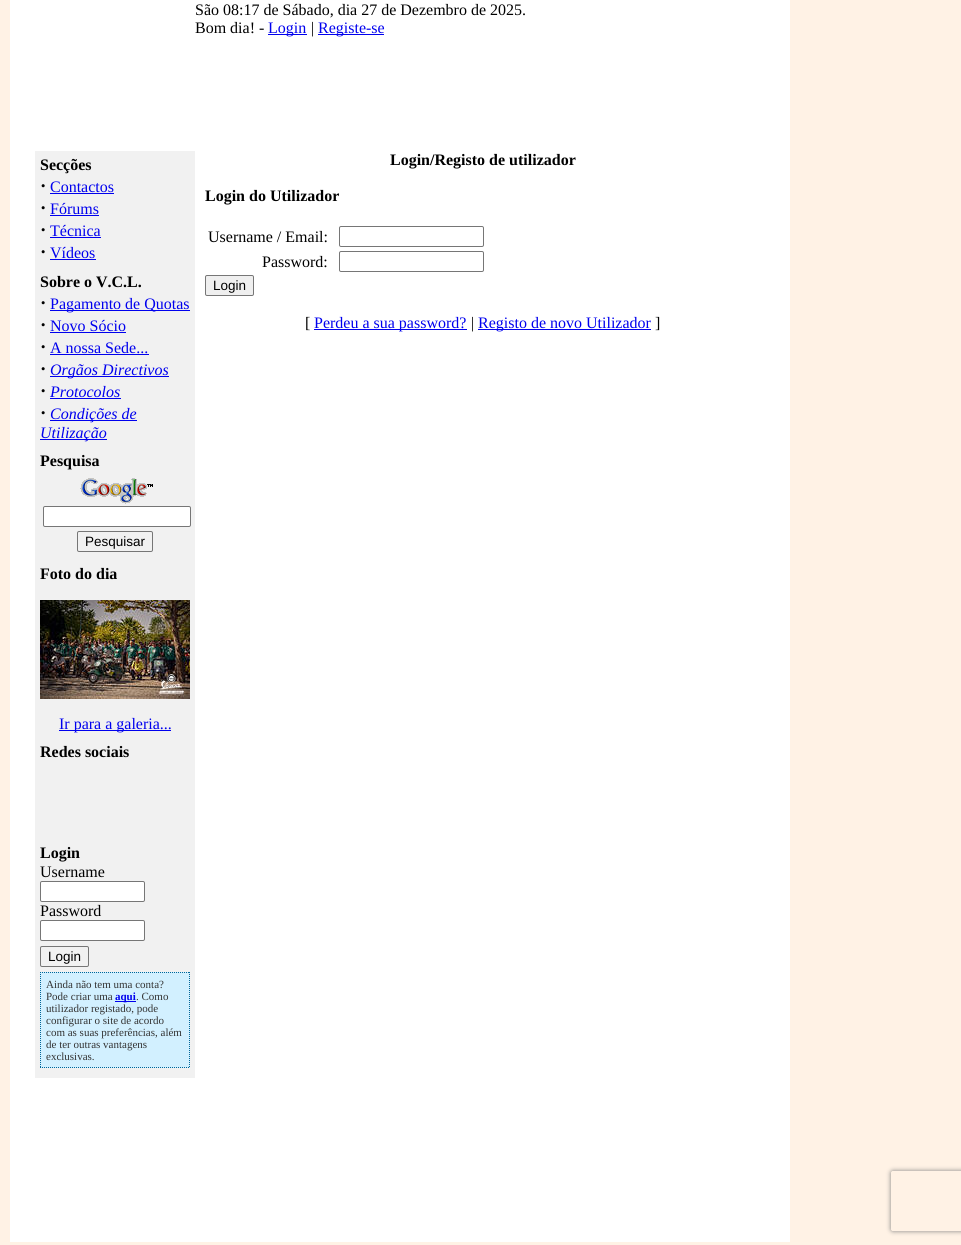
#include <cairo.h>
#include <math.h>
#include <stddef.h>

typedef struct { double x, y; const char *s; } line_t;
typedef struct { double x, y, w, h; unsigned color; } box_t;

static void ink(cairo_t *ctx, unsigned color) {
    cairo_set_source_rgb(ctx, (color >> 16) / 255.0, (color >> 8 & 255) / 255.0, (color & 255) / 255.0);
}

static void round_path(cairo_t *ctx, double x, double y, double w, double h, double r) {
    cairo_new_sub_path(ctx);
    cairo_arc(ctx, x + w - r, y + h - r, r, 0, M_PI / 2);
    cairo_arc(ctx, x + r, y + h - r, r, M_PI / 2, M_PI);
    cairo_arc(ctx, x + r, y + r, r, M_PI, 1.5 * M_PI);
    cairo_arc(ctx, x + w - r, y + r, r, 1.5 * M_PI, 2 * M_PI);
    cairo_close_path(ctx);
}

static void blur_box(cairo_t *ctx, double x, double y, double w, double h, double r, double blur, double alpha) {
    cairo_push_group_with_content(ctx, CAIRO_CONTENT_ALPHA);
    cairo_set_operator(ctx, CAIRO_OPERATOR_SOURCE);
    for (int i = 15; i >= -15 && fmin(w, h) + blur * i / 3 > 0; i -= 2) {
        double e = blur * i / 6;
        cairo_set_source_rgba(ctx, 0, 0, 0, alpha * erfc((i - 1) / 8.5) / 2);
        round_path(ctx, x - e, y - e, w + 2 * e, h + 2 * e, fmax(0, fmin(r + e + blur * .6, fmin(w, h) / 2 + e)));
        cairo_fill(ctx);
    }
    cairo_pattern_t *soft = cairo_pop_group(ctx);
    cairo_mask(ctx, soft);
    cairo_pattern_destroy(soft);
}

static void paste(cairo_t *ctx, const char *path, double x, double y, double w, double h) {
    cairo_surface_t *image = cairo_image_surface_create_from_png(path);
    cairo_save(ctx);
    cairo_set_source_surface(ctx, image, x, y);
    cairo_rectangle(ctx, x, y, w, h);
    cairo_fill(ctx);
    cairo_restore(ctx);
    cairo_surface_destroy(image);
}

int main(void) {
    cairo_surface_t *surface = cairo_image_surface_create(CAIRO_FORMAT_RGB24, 961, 1245);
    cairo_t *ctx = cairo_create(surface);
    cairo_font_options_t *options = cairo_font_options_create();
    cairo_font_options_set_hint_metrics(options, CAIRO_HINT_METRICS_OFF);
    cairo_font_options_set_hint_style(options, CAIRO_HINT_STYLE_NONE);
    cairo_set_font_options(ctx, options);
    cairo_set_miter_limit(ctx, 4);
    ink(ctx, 0xFFF2E5);
    cairo_paint(ctx);
    ink(ctx, 0xFFFFFF);
    cairo_rectangle(ctx, 10, 0, 780, 150);
    cairo_fill(ctx);
    cairo_select_font_face(ctx, "Liberation Serif", CAIRO_FONT_SLANT_NORMAL, CAIRO_FONT_WEIGHT_NORMAL);
    cairo_set_font_size(ctx, 16);
    ink(ctx, 0x000000);
    cairo_move_to(ctx, 195, 15);
    cairo_show_text(ctx, "São 08:17 de Sábado, dia 27 de Dezembro de 2025.");
    cairo_move_to(ctx, 195, 33);
    cairo_show_text(ctx, "Bom dia! -");
    ink(ctx, 0x0000EE);
    cairo_rectangle(ctx, 268, 34, 39, 1);
    cairo_fill(ctx);
    cairo_move_to(ctx, 268, 33);
    cairo_show_text(ctx, "Login");
    ink(ctx, 0x000000);
    cairo_move_to(ctx, 311, 33);
    cairo_show_text(ctx, "|");
    ink(ctx, 0x0000EE);
    cairo_rectangle(ctx, 318, 34, 66, 1);
    cairo_fill(ctx);
    cairo_move_to(ctx, 318, 33);
    cairo_show_text(ctx, "Registe-se");
    ink(ctx, 0xFFFFFF);
    cairo_rectangle(ctx, 10, 150, 780, 929);
    cairo_fill(ctx);
    ink(ctx, 0xF1F1F1);
    cairo_rectangle(ctx, 35, 151, 160, 927);
    cairo_fill(ctx);
    cairo_select_font_face(ctx, "Liberation Serif", CAIRO_FONT_SLANT_NORMAL, CAIRO_FONT_WEIGHT_BOLD);
    ink(ctx, 0x000000);
    cairo_move_to(ctx, 40, 170);
    cairo_show_text(ctx, "Secções");
    cairo_set_font_size(ctx, 19);
    cairo_move_to(ctx, 40, 192);
    cairo_show_text(ctx, "·");
    cairo_select_font_face(ctx, "Liberation Serif", CAIRO_FONT_SLANT_NORMAL, CAIRO_FONT_WEIGHT_NORMAL);
    cairo_set_font_size(ctx, 16);
    ink(ctx, 0x0000EE);
    cairo_move_to(ctx, 50, 192);
    cairo_show_text(ctx, "Contactos");
    cairo_rectangle(ctx, 50, 193, 64, 1);
    cairo_fill(ctx);
    cairo_select_font_face(ctx, "Liberation Serif", CAIRO_FONT_SLANT_NORMAL, CAIRO_FONT_WEIGHT_BOLD);
    cairo_set_font_size(ctx, 19);
    ink(ctx, 0x000000);
    cairo_move_to(ctx, 40, 214);
    cairo_show_text(ctx, "·");
    cairo_select_font_face(ctx, "Liberation Serif", CAIRO_FONT_SLANT_NORMAL, CAIRO_FONT_WEIGHT_NORMAL);
    cairo_set_font_size(ctx, 16);
    ink(ctx, 0x0000EE);
    cairo_move_to(ctx, 50, 214);
    cairo_show_text(ctx, "Fórums");
    cairo_rectangle(ctx, 50, 215, 49, 1);
    cairo_fill(ctx);
    cairo_select_font_face(ctx, "Liberation Serif", CAIRO_FONT_SLANT_NORMAL, CAIRO_FONT_WEIGHT_BOLD);
    cairo_set_font_size(ctx, 19);
    ink(ctx, 0x000000);
    cairo_move_to(ctx, 40, 236);
    cairo_show_text(ctx, "·");
    cairo_select_font_face(ctx, "Liberation Serif", CAIRO_FONT_SLANT_NORMAL, CAIRO_FONT_WEIGHT_NORMAL);
    cairo_set_font_size(ctx, 16);
    ink(ctx, 0x0000EE);
    cairo_move_to(ctx, 50, 236);
    cairo_show_text(ctx, "Técnica");
    cairo_rectangle(ctx, 50, 237, 51, 1);
    cairo_fill(ctx);
    cairo_select_font_face(ctx, "Liberation Serif", CAIRO_FONT_SLANT_NORMAL, CAIRO_FONT_WEIGHT_BOLD);
    cairo_set_font_size(ctx, 19);
    ink(ctx, 0x000000);
    cairo_move_to(ctx, 40, 258);
    cairo_show_text(ctx, "·");
    cairo_select_font_face(ctx, "Liberation Serif", CAIRO_FONT_SLANT_NORMAL, CAIRO_FONT_WEIGHT_NORMAL);
    cairo_set_font_size(ctx, 16);
    ink(ctx, 0x0000EE);
    cairo_move_to(ctx, 50, 258);
    cairo_show_text(ctx, "Vídeos");
    cairo_rectangle(ctx, 50, 259, 46, 1);
    cairo_fill(ctx);
    cairo_select_font_face(ctx, "Liberation Serif", CAIRO_FONT_SLANT_NORMAL, CAIRO_FONT_WEIGHT_BOLD);
    ink(ctx, 0x000000);
    cairo_move_to(ctx, 40, 287);
    cairo_show_text(ctx, "Sobre o V.C.L.");
    cairo_set_font_size(ctx, 19);
    cairo_move_to(ctx, 40, 309);
    cairo_show_text(ctx, "·");
    ink(ctx, 0x0000EE);
    cairo_rectangle(ctx, 50, 310, 140, 1);
    cairo_fill(ctx);
    cairo_select_font_face(ctx, "Liberation Serif", CAIRO_FONT_SLANT_NORMAL, CAIRO_FONT_WEIGHT_NORMAL);
    cairo_set_font_size(ctx, 16);
    cairo_move_to(ctx, 50, 309);
    cairo_show_text(ctx, "Pagamento de Quotas");
    cairo_select_font_face(ctx, "Liberation Serif", CAIRO_FONT_SLANT_NORMAL, CAIRO_FONT_WEIGHT_BOLD);
    cairo_set_font_size(ctx, 19);
    ink(ctx, 0x000000);
    cairo_move_to(ctx, 40, 331);
    cairo_show_text(ctx, "·");
    cairo_select_font_face(ctx, "Liberation Serif", CAIRO_FONT_SLANT_NORMAL, CAIRO_FONT_WEIGHT_NORMAL);
    cairo_set_font_size(ctx, 16);
    ink(ctx, 0x0000EE);
    cairo_move_to(ctx, 50, 331);
    cairo_show_text(ctx, "Novo Sócio");
    cairo_rectangle(ctx, 50, 332, 76, 1);
    cairo_fill(ctx);
    cairo_select_font_face(ctx, "Liberation Serif", CAIRO_FONT_SLANT_NORMAL, CAIRO_FONT_WEIGHT_BOLD);
    cairo_set_font_size(ctx, 19);
    ink(ctx, 0x000000);
    cairo_move_to(ctx, 40, 353);
    cairo_show_text(ctx, "·");
    cairo_select_font_face(ctx, "Liberation Serif", CAIRO_FONT_SLANT_NORMAL, CAIRO_FONT_WEIGHT_NORMAL);
    cairo_set_font_size(ctx, 16);
    ink(ctx, 0x0000EE);
    cairo_move_to(ctx, 50, 353);
    cairo_show_text(ctx, "A nossa Sede...");
    cairo_rectangle(ctx, 50, 354, 99, 1);
    cairo_fill(ctx);
    cairo_select_font_face(ctx, "Liberation Serif", CAIRO_FONT_SLANT_NORMAL, CAIRO_FONT_WEIGHT_BOLD);
    cairo_set_font_size(ctx, 19);
    ink(ctx, 0x000000);
    cairo_move_to(ctx, 40, 375);
    cairo_show_text(ctx, "·");
    ink(ctx, 0x0000EE);
    cairo_rectangle(ctx, 50, 376, 119, 1);
    cairo_fill(ctx);
    cairo_select_font_face(ctx, "Liberation Serif", CAIRO_FONT_SLANT_ITALIC, CAIRO_FONT_WEIGHT_NORMAL);
    cairo_set_font_size(ctx, 16);
    cairo_move_to(ctx, 50, 375);
    cairo_show_text(ctx, "Orgãos Directivos");
    cairo_select_font_face(ctx, "Liberation Serif", CAIRO_FONT_SLANT_NORMAL, CAIRO_FONT_WEIGHT_BOLD);
    cairo_set_font_size(ctx, 19);
    ink(ctx, 0x000000);
    cairo_move_to(ctx, 40, 397);
    cairo_show_text(ctx, "·");
    cairo_select_font_face(ctx, "Liberation Serif", CAIRO_FONT_SLANT_ITALIC, CAIRO_FONT_WEIGHT_NORMAL);
    cairo_set_font_size(ctx, 16);
    ink(ctx, 0x0000EE);
    cairo_move_to(ctx, 50, 397);
    cairo_show_text(ctx, "Protocolos");
    cairo_rectangle(ctx, 50, 398, 71, 1);
    cairo_fill(ctx);
    cairo_select_font_face(ctx, "Liberation Serif", CAIRO_FONT_SLANT_NORMAL, CAIRO_FONT_WEIGHT_BOLD);
    cairo_set_font_size(ctx, 19);
    ink(ctx, 0x000000);
    cairo_move_to(ctx, 40, 419);
    cairo_show_text(ctx, "·");
    ink(ctx, 0x0000EE);
    cairo_rectangle(ctx, 50, 420, 87, 1);
    cairo_fill(ctx);
    cairo_select_font_face(ctx, "Liberation Serif", CAIRO_FONT_SLANT_ITALIC, CAIRO_FONT_WEIGHT_NORMAL);
    cairo_set_font_size(ctx, 16);
    cairo_move_to(ctx, 50, 419);
    cairo_show_text(ctx, "Condições de");
    cairo_rectangle(ctx, 40, 439, 67, 1);
    cairo_fill(ctx);
    cairo_move_to(ctx, 40, 438);
    cairo_show_text(ctx, "Utilização");
    cairo_select_font_face(ctx, "Liberation Serif", CAIRO_FONT_SLANT_NORMAL, CAIRO_FONT_WEIGHT_BOLD);
    ink(ctx, 0x000000);
    cairo_move_to(ctx, 40, 466);
    cairo_show_text(ctx, "Pesquisa");
    paste(ctx, "media/1.png", 80, 478, 73, 26);
    ink(ctx, 0xFFFFFF);
    round_path(ctx, 43.5, 506.5, 147, 20, 1.5);
    cairo_fill_preserve(ctx);
    ink(ctx, 0x767676);
    cairo_set_line_width(ctx, 1);
    cairo_stroke(ctx);
    round_path(ctx, 77.5, 531.5, 75, 20, 1.5);
    cairo_stroke(ctx);
    cairo_select_font_face(ctx, "Liberation Sans", CAIRO_FONT_SLANT_NORMAL, CAIRO_FONT_WEIGHT_NORMAL);
    cairo_set_font_size(ctx, 13.5);
    ink(ctx, 0x000000);
    cairo_move_to(ctx, 85, 546);
    cairo_show_text(ctx, "Pesquisar");
    cairo_select_font_face(ctx, "Liberation Serif", CAIRO_FONT_SLANT_NORMAL, CAIRO_FONT_WEIGHT_BOLD);
    cairo_set_font_size(ctx, 16);
    cairo_move_to(ctx, 40, 579);
    cairo_show_text(ctx, "Foto do dia");
    paste(ctx, "media/2.png", 40, 600, 150, 99);
    ink(ctx, 0x0000EE);
    cairo_rectangle(ctx, 59, 730, 112, 1);
    cairo_fill(ctx);
    cairo_select_font_face(ctx, "Liberation Serif", CAIRO_FONT_SLANT_NORMAL, CAIRO_FONT_WEIGHT_NORMAL);
    cairo_move_to(ctx, 59, 729);
    cairo_show_text(ctx, "Ir para a galeria...");
    cairo_select_font_face(ctx, "Liberation Serif", CAIRO_FONT_SLANT_NORMAL, CAIRO_FONT_WEIGHT_BOLD);
    ink(ctx, 0x000000);
    cairo_move_to(ctx, 40, 757);
    cairo_show_text(ctx, "Redes sociais");
    cairo_move_to(ctx, 40, 858);
    cairo_show_text(ctx, "Login");
    cairo_select_font_face(ctx, "Liberation Serif", CAIRO_FONT_SLANT_NORMAL, CAIRO_FONT_WEIGHT_NORMAL);
    cairo_move_to(ctx, 40, 877);
    cairo_show_text(ctx, "Username");
    ink(ctx, 0xFFFFFF);
    round_path(ctx, 40.5, 881.5, 104, 20, 1.5);
    cairo_fill_preserve(ctx);
    ink(ctx, 0x767676);
    cairo_stroke(ctx);
    ink(ctx, 0x000000);
    cairo_move_to(ctx, 40, 916);
    cairo_show_text(ctx, "Password");
    ink(ctx, 0xFFFFFF);
    round_path(ctx, 40.5, 920.5, 104, 20, 1.5);
    cairo_fill_preserve(ctx);
    ink(ctx, 0x767676);
    cairo_stroke(ctx);
    round_path(ctx, 40.5, 946.5, 48, 20, 1.5);
    cairo_stroke(ctx);
    cairo_select_font_face(ctx, "Liberation Sans", CAIRO_FONT_SLANT_NORMAL, CAIRO_FONT_WEIGHT_NORMAL);
    cairo_set_font_size(ctx, 13.5);
    ink(ctx, 0x000000);
    cairo_move_to(ctx, 48, 961);
    cairo_show_text(ctx, "Login");
    ink(ctx, 0xD2F0FF);
    cairo_rectangle(ctx, 40, 972, 150, 96);
    cairo_fill(ctx);
    cairo_new_path(ctx);
    cairo_move_to(ctx, 40, 972.5);
    cairo_line_to(ctx, 190, 972.5);
    ink(ctx, 0x006699);
    cairo_set_dash(ctx, (double[]){1, 1}, 2, 0);
    cairo_stroke(ctx);
    cairo_new_path(ctx);
    cairo_move_to(ctx, 189.5, 972);
    cairo_line_to(ctx, 189.5, 1068);
    cairo_stroke(ctx);
    cairo_new_path(ctx);
    cairo_move_to(ctx, 40, 1067.5);
    cairo_line_to(ctx, 190, 1067.5);
    cairo_stroke(ctx);
    cairo_new_path(ctx);
    cairo_move_to(ctx, 40.5, 972);
    cairo_line_to(ctx, 40.5, 1068);
    cairo_stroke(ctx);
    cairo_select_font_face(ctx, "Liberation Serif", CAIRO_FONT_SLANT_NORMAL, CAIRO_FONT_WEIGHT_NORMAL);
    cairo_set_font_size(ctx, 11);
    ink(ctx, 0x333333);
    cairo_move_to(ctx, 46, 988);
    cairo_show_text(ctx, "Ainda não tem uma conta?");
    cairo_move_to(ctx, 46, 1000);
    cairo_show_text(ctx, "Pode criar uma");
    ink(ctx, 0x0000EE);
    cairo_rectangle(ctx, 115, 1001, 21, 1);
    cairo_fill(ctx);
    cairo_select_font_face(ctx, "Liberation Serif", CAIRO_FONT_SLANT_NORMAL, CAIRO_FONT_WEIGHT_BOLD);
    cairo_move_to(ctx, 115, 1000);
    cairo_show_text(ctx, "aqui");
    cairo_select_font_face(ctx, "Liberation Serif", CAIRO_FONT_SLANT_NORMAL, CAIRO_FONT_WEIGHT_NORMAL);
    ink(ctx, 0x333333);
    {
        static const line_t items[] = {
            {136, 1000, ". Como"},
            {46, 1012, "utilizador registado, pode"},
            {46, 1024, "configurar o site de acordo"},
            {46, 1036, "com as suas preferências, além"},
            {46, 1048, "de ter outras vantagens"},
            {46, 1060, "exclusivas."},
        };
        for (size_t i = 0; i < sizeof items / sizeof *items; i++) {
            cairo_move_to(ctx, items[i].x, items[i].y);
            cairo_show_text(ctx, items[i].s);
        }
    }
    cairo_select_font_face(ctx, "Liberation Serif", CAIRO_FONT_SLANT_NORMAL, CAIRO_FONT_WEIGHT_BOLD);
    cairo_set_font_size(ctx, 16);
    ink(ctx, 0x000000);
    cairo_move_to(ctx, 390, 165);
    cairo_show_text(ctx, "Login/Registo de utilizador");
    cairo_move_to(ctx, 205, 201);
    cairo_show_text(ctx, "Login do Utilizador");
    cairo_select_font_face(ctx, "Liberation Serif", CAIRO_FONT_SLANT_NORMAL, CAIRO_FONT_WEIGHT_NORMAL);
    cairo_move_to(ctx, 208, 242);
    cairo_show_text(ctx, "Username / Email:");
    round_path(ctx, 339.5, 226.5, 144, 20, 1.5);
    ink(ctx, 0x767676);
    cairo_set_dash(ctx, NULL, 0, 0);
    cairo_stroke(ctx);
    ink(ctx, 0x000000);
    cairo_move_to(ctx, 262, 267);
    cairo_show_text(ctx, "Password:");
    round_path(ctx, 339.5, 251.5, 144, 20, 1.5);
    ink(ctx, 0x767676);
    cairo_stroke(ctx);
    ink(ctx, 0xEFEFEF);
    round_path(ctx, 205.5, 275.5, 48, 20, 1.5);
    cairo_fill_preserve(ctx);
    ink(ctx, 0x767676);
    cairo_stroke(ctx);
    cairo_select_font_face(ctx, "Liberation Sans", CAIRO_FONT_SLANT_NORMAL, CAIRO_FONT_WEIGHT_NORMAL);
    cairo_set_font_size(ctx, 13.5);
    ink(ctx, 0x000000);
    cairo_move_to(ctx, 213, 290);
    cairo_show_text(ctx, "Login");
    cairo_select_font_face(ctx, "Liberation Serif", CAIRO_FONT_SLANT_NORMAL, CAIRO_FONT_WEIGHT_NORMAL);
    cairo_set_font_size(ctx, 16);
    cairo_move_to(ctx, 305, 328);
    cairo_show_text(ctx, "[");
    ink(ctx, 0x0000EE);
    cairo_rectangle(ctx, 314, 329, 153, 1);
    cairo_fill(ctx);
    cairo_move_to(ctx, 314, 328);
    cairo_show_text(ctx, "Perdeu a sua password?");
    ink(ctx, 0x000000);
    cairo_move_to(ctx, 471, 328);
    cairo_show_text(ctx, "|");
    ink(ctx, 0x0000EE);
    cairo_rectangle(ctx, 478, 329, 173, 1);
    cairo_fill(ctx);
    cairo_move_to(ctx, 478, 328);
    cairo_show_text(ctx, "Registo de novo Utilizador");
    ink(ctx, 0x000000);
    cairo_move_to(ctx, 655, 328);
    cairo_show_text(ctx, "]");
    {
        static const box_t items[] = {
            {10, 1079, 780, 122, 0xFFFFFF},
            {10, 1201, 780, 18, 0xFFFFFF},
            {10, 1219, 780, 23, 0xFFFFFF},
        };
        for (size_t i = 0; i < sizeof items / sizeof *items; i++) {
            ink(ctx, items[i].color);
            cairo_rectangle(ctx, items[i].x, items[i].y, items[i].w, items[i].h);
            cairo_fill(ctx);
        }
    }
    cairo_save(ctx);
    cairo_set_fill_rule(ctx, CAIRO_FILL_RULE_EVEN_ODD);
    cairo_new_path(ctx);
    cairo_move_to(ctx, 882, 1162);
    cairo_line_to(ctx, 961, 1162);
    cairo_line_to(ctx, 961, 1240);
    cairo_line_to(ctx, 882, 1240);
    cairo_close_path(ctx);
    cairo_move_to(ctx, 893, 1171);
    cairo_line_to(ctx, 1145, 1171);
    cairo_curve_to(ctx, 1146, 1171, 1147, 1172, 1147, 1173);
    cairo_line_to(ctx, 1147, 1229);
    cairo_curve_to(ctx, 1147, 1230, 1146, 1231, 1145, 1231);
    cairo_line_to(ctx, 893, 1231);
    cairo_curve_to(ctx, 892, 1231, 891, 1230, 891, 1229);
    cairo_line_to(ctx, 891, 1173);
    cairo_curve_to(ctx, 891, 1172, 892, 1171, 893, 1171);
    cairo_close_path(ctx);
    cairo_clip(ctx);
    ink(ctx, 0x808080);
    blur_box(ctx, 891, 1171, 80, 60, 2, 2.5, 1);
    cairo_restore(ctx);
    cairo_surface_write_to_png(surface, "image.png");
    cairo_font_options_destroy(options);
    cairo_destroy(ctx);
    cairo_surface_destroy(surface);
    return 0;
}
